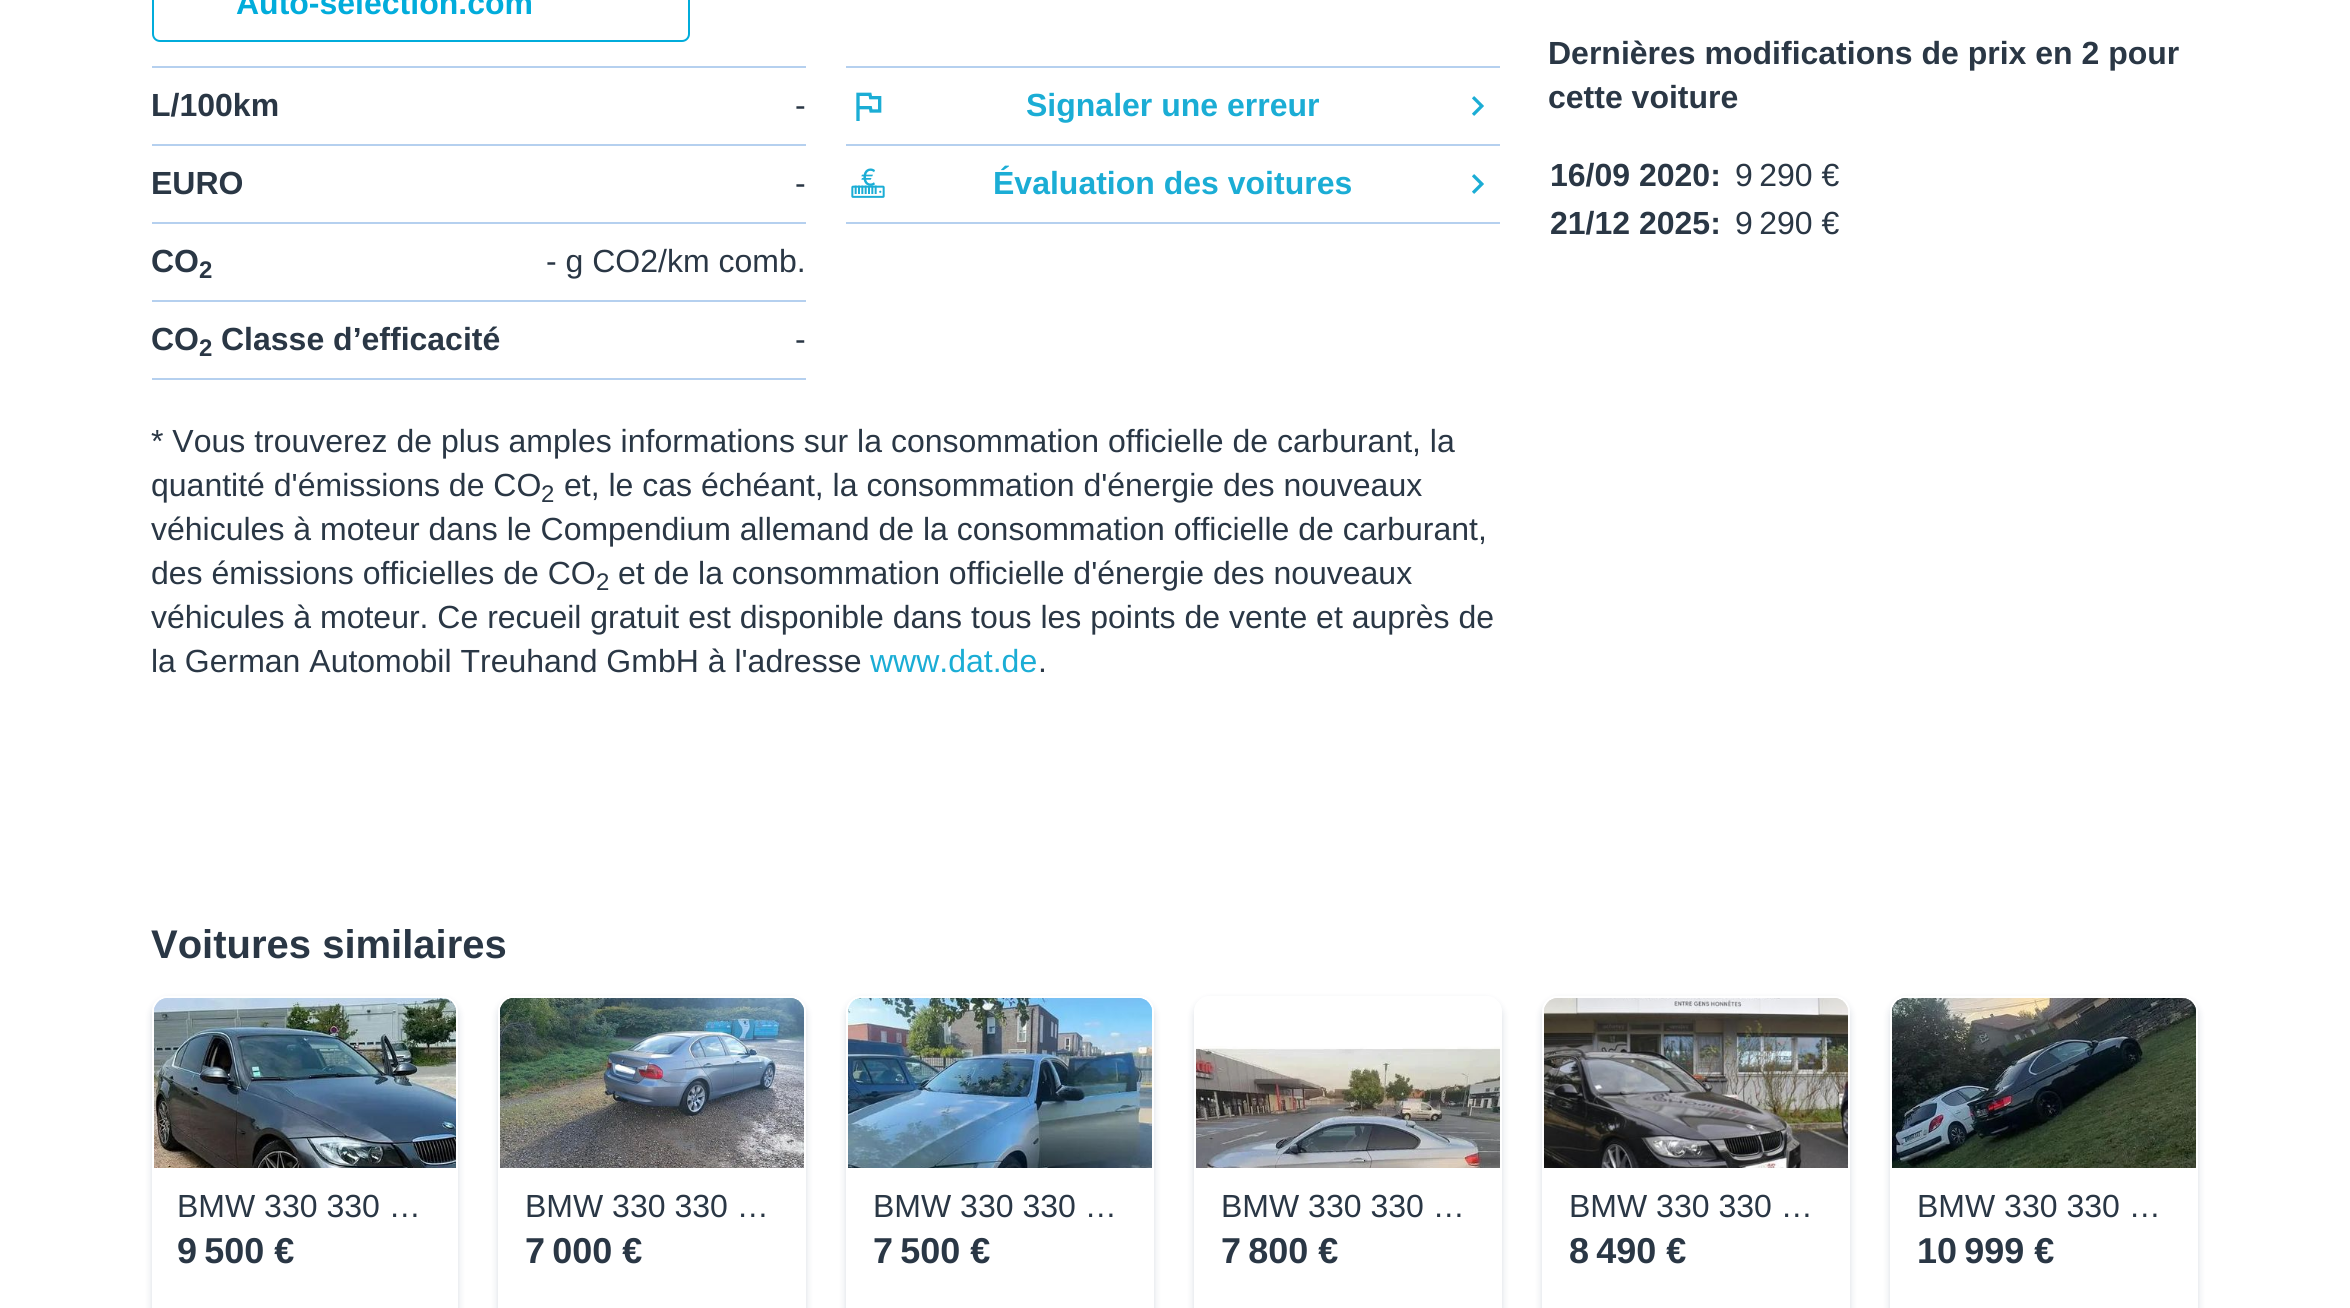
#include <cairo.h>
#include <math.h>
#include <stddef.h>

typedef struct { double x, y; const char *s; } line_t;

static void ink(cairo_t *ctx, unsigned color) {
    cairo_set_source_rgb(ctx, (color >> 16) / 255.0, (color >> 8 & 255) / 255.0, (color & 255) / 255.0);
}

static void round_path(cairo_t *ctx, double x, double y, double w, double h, double r) {
    cairo_new_sub_path(ctx);
    cairo_arc(ctx, x + w - r, y + h - r, r, 0, M_PI / 2);
    cairo_arc(ctx, x + r, y + h - r, r, M_PI / 2, M_PI);
    cairo_arc(ctx, x + r, y + r, r, M_PI, 1.5 * M_PI);
    cairo_arc(ctx, x + w - r, y + r, r, 1.5 * M_PI, 2 * M_PI);
    cairo_close_path(ctx);
}

static void blur_box(cairo_t *ctx, double x, double y, double w, double h, double r, double blur, double alpha) {
    cairo_push_group_with_content(ctx, CAIRO_CONTENT_ALPHA);
    cairo_set_operator(ctx, CAIRO_OPERATOR_SOURCE);
    for (int i = 15; i >= -15 && fmin(w, h) + blur * i / 3 > 0; i -= 2) {
        double e = blur * i / 6;
        cairo_set_source_rgba(ctx, 0, 0, 0, alpha * erfc((i - 1) / 8.5) / 2);
        round_path(ctx, x - e, y - e, w + 2 * e, h + 2 * e, fmax(0, fmin(r + e + blur * .6, fmin(w, h) / 2 + e)));
        cairo_fill(ctx);
    }
    cairo_pattern_t *soft = cairo_pop_group(ctx);
    cairo_mask(ctx, soft);
    cairo_pattern_destroy(soft);
}

static void paste(cairo_t *ctx, const char *path, double x, double y, double w, double h) {
    cairo_surface_t *image = cairo_image_surface_create_from_png(path);
    cairo_save(ctx);
    cairo_set_source_surface(ctx, image, x, y);
    cairo_rectangle(ctx, x, y, w, h);
    cairo_fill(ctx);
    cairo_restore(ctx);
    cairo_surface_destroy(image);
}

int main(void) {
    cairo_surface_t *surface = cairo_image_surface_create(CAIRO_FORMAT_RGB24, 2350, 1308);
    cairo_t *ctx = cairo_create(surface);
    cairo_font_options_t *options = cairo_font_options_create();
    cairo_font_options_set_hint_metrics(options, CAIRO_HINT_METRICS_OFF);
    cairo_font_options_set_hint_style(options, CAIRO_HINT_STYLE_NONE);
    cairo_set_font_options(ctx, options);
    cairo_set_miter_limit(ctx, 4);
    ink(ctx, 0xFFFFFF);
    cairo_paint(ctx);
    round_path(ctx, 153, -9, 536, 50, 7);
    ink(ctx, 0x01ACDB);
    cairo_stroke(ctx);
    cairo_select_font_face(ctx, "Liberation Sans", CAIRO_FONT_SLANT_NORMAL, CAIRO_FONT_WEIGHT_BOLD);
    cairo_set_font_size(ctx, 32);
    cairo_move_to(ctx, 236, 14);
    cairo_show_text(ctx, "Auto-selection.com");
    ink(ctx, 0xB5D0EF);
    cairo_rectangle(ctx, 152, 66, 654, 2);
    cairo_fill(ctx);
    cairo_rectangle(ctx, 152, 378, 654, 2);
    cairo_fill(ctx);
    ink(ctx, 0x2A3745);
    cairo_move_to(ctx, 151, 116);
    cairo_show_text(ctx, "L/100km");
    cairo_select_font_face(ctx, "Liberation Sans", CAIRO_FONT_SLANT_NORMAL, CAIRO_FONT_WEIGHT_NORMAL);
    cairo_move_to(ctx, 795, 116);
    cairo_show_text(ctx, "-");
    ink(ctx, 0xB5D0EF);
    cairo_rectangle(ctx, 152, 144, 654, 2);
    cairo_fill(ctx);
    cairo_select_font_face(ctx, "Liberation Sans", CAIRO_FONT_SLANT_NORMAL, CAIRO_FONT_WEIGHT_BOLD);
    ink(ctx, 0x2A3745);
    cairo_move_to(ctx, 151, 194);
    cairo_show_text(ctx, "EURO");
    cairo_select_font_face(ctx, "Liberation Sans", CAIRO_FONT_SLANT_NORMAL, CAIRO_FONT_WEIGHT_NORMAL);
    cairo_move_to(ctx, 795, 194);
    cairo_show_text(ctx, "-");
    ink(ctx, 0xB5D0EF);
    cairo_rectangle(ctx, 152, 222, 654, 2);
    cairo_fill(ctx);
    cairo_select_font_face(ctx, "Liberation Sans", CAIRO_FONT_SLANT_NORMAL, CAIRO_FONT_WEIGHT_BOLD);
    ink(ctx, 0x2A3745);
    cairo_move_to(ctx, 151, 272);
    cairo_show_text(ctx, "CO");
    cairo_set_font_size(ctx, 24);
    cairo_move_to(ctx, 199, 278);
    cairo_show_text(ctx, "2");
    cairo_select_font_face(ctx, "Liberation Sans", CAIRO_FONT_SLANT_NORMAL, CAIRO_FONT_WEIGHT_NORMAL);
    cairo_set_font_size(ctx, 32);
    cairo_move_to(ctx, 546, 272);
    cairo_show_text(ctx, "- g CO2/km comb.");
    ink(ctx, 0xB5D0EF);
    cairo_rectangle(ctx, 152, 300, 654, 2);
    cairo_fill(ctx);
    cairo_select_font_face(ctx, "Liberation Sans", CAIRO_FONT_SLANT_NORMAL, CAIRO_FONT_WEIGHT_BOLD);
    ink(ctx, 0x2A3745);
    cairo_move_to(ctx, 151, 350);
    cairo_show_text(ctx, "CO");
    cairo_set_font_size(ctx, 24);
    cairo_move_to(ctx, 199, 356);
    cairo_show_text(ctx, "2");
    cairo_set_font_size(ctx, 32);
    cairo_move_to(ctx, 221, 350);
    cairo_show_text(ctx, "Classe d’efficacité");
    cairo_select_font_face(ctx, "Liberation Sans", CAIRO_FONT_SLANT_NORMAL, CAIRO_FONT_WEIGHT_NORMAL);
    cairo_move_to(ctx, 795, 350);
    cairo_show_text(ctx, "-");
    ink(ctx, 0xB5D0EF);
    cairo_rectangle(ctx, 846, 66, 654, 2);
    cairo_fill(ctx);
    cairo_rectangle(ctx, 846, 222, 654, 2);
    cairo_fill(ctx);
    paste(ctx, "media/1.png", 856, 92, 26, 29);
    cairo_select_font_face(ctx, "Liberation Sans", CAIRO_FONT_SLANT_NORMAL, CAIRO_FONT_WEIGHT_BOLD);
    ink(ctx, 0x1BADD5);
    cairo_move_to(ctx, 1026, 116);
    cairo_show_text(ctx, "Signaler une erreur");
    paste(ctx, "media/2.png", 1472, 96, 12, 20);
    ink(ctx, 0xB5D0EF);
    cairo_rectangle(ctx, 846, 144, 654, 2);
    cairo_fill(ctx);
    paste(ctx, "media/3.png", 851, 168, 34, 30);
    ink(ctx, 0x1BADD5);
    cairo_move_to(ctx, 993, 194);
    cairo_show_text(ctx, "Évaluation des voitures");
    paste(ctx, "media/2.png", 1472, 174, 12, 20);
    cairo_select_font_face(ctx, "Liberation Sans", CAIRO_FONT_SLANT_NORMAL, CAIRO_FONT_WEIGHT_NORMAL);
    ink(ctx, 0x2A3745);
    cairo_move_to(ctx, 151, 452);
    cairo_show_text(ctx, "* Vous trouverez de plus amples informations sur la consommation officielle de carburant, la");
    cairo_move_to(ctx, 151, 496);
    cairo_show_text(ctx, "quantité d'émissions de CO");
    cairo_set_font_size(ctx, 24);
    cairo_move_to(ctx, 541, 502);
    cairo_show_text(ctx, "2");
    cairo_set_font_size(ctx, 32);
    {
        static const line_t items[] = {
            {564, 496, "et, le cas échéant, la consommation d'énergie des nouveaux"},
            {151, 540, "véhicules à moteur dans le Compendium allemand de la consommation officielle de carburant,"},
            {151, 584, "des émissions officielles de CO"},
        };
        for (size_t i = 0; i < sizeof items / sizeof *items; i++) {
            cairo_move_to(ctx, items[i].x, items[i].y);
            cairo_show_text(ctx, items[i].s);
        }
    }
    cairo_set_font_size(ctx, 24);
    cairo_move_to(ctx, 596, 590);
    cairo_show_text(ctx, "2");
    cairo_set_font_size(ctx, 32);
    {
        static const line_t items[] = {
            {618, 584, "et de la consommation officielle d'énergie des nouveaux"},
            {151, 628, "véhicules à moteur. Ce recueil gratuit est disponible dans tous les points de vente et auprès de"},
            {151, 672, "la German Automobil Treuhand GmbH à l'adresse"},
        };
        for (size_t i = 0; i < sizeof items / sizeof *items; i++) {
            cairo_move_to(ctx, items[i].x, items[i].y);
            cairo_show_text(ctx, items[i].s);
        }
    }
    ink(ctx, 0x1BADD5);
    cairo_move_to(ctx, 870, 672);
    cairo_show_text(ctx, "www.dat.de");
    ink(ctx, 0x2A3745);
    cairo_move_to(ctx, 1038, 672);
    cairo_show_text(ctx, ".");
    cairo_select_font_face(ctx, "Liberation Sans", CAIRO_FONT_SLANT_NORMAL, CAIRO_FONT_WEIGHT_BOLD);
    {
        static const line_t items[] = {
            {1548, 64, "Dernières modifications de prix en 2 pour"},
            {1548, 108, "cette voiture"},
            {1550, 186, "16/09 2020:"},
        };
        for (size_t i = 0; i < sizeof items / sizeof *items; i++) {
            cairo_move_to(ctx, items[i].x, items[i].y);
            cairo_show_text(ctx, items[i].s);
        }
    }
    cairo_select_font_face(ctx, "Liberation Sans", CAIRO_FONT_SLANT_NORMAL, CAIRO_FONT_WEIGHT_NORMAL);
    cairo_move_to(ctx, 1735, 186);
    cairo_show_text(ctx, "9 290 €");
    cairo_select_font_face(ctx, "Liberation Sans", CAIRO_FONT_SLANT_NORMAL, CAIRO_FONT_WEIGHT_BOLD);
    cairo_move_to(ctx, 1550, 234);
    cairo_show_text(ctx, "21/12 2025:");
    cairo_select_font_face(ctx, "Liberation Sans", CAIRO_FONT_SLANT_NORMAL, CAIRO_FONT_WEIGHT_NORMAL);
    cairo_move_to(ctx, 1735, 234);
    cairo_show_text(ctx, "9 290 €");
    cairo_select_font_face(ctx, "Liberation Sans", CAIRO_FONT_SLANT_NORMAL, CAIRO_FONT_WEIGHT_BOLD);
    cairo_set_font_size(ctx, 40);
    cairo_move_to(ctx, 151, 958);
    cairo_show_text(ctx, "Voitures similaires");
    cairo_save(ctx);
    cairo_set_fill_rule(ctx, CAIRO_FILL_RULE_EVEN_ODD);
    cairo_new_path(ctx);
    cairo_move_to(ctx, 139, 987);
    cairo_line_to(ctx, 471, 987);
    cairo_line_to(ctx, 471, 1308);
    cairo_line_to(ctx, 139, 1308);
    cairo_close_path(ctx);
    cairo_move_to(ctx, 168, 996);
    cairo_line_to(ctx, 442, 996);
    cairo_curve_to(ctx, 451, 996, 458, 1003, 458, 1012);
    cairo_line_to(ctx, 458, 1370);
    cairo_curve_to(ctx, 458, 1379, 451, 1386, 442, 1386);
    cairo_line_to(ctx, 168, 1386);
    cairo_curve_to(ctx, 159, 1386, 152, 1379, 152, 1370);
    cairo_line_to(ctx, 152, 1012);
    cairo_curve_to(ctx, 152, 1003, 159, 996, 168, 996);
    cairo_close_path(ctx);
    cairo_clip(ctx);
    ink(ctx, 0x001C49);
    blur_box(ctx, 152, 1000, 306, 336, 16, 4, 0.15);
    cairo_restore(ctx);
    paste(ctx, "media/4.png", 154, 998, 302, 170);
    paste(ctx, "media/5.png", 154, 998, 302, 14);
    cairo_select_font_face(ctx, "Liberation Sans", CAIRO_FONT_SLANT_NORMAL, CAIRO_FONT_WEIGHT_NORMAL);
    cairo_set_font_size(ctx, 32);
    cairo_move_to(ctx, 177, 1217);
    cairo_show_text(ctx, "BMW 330 330 …");
    cairo_select_font_face(ctx, "Liberation Sans", CAIRO_FONT_SLANT_NORMAL, CAIRO_FONT_WEIGHT_BOLD);
    cairo_set_font_size(ctx, 36);
    cairo_move_to(ctx, 177, 1263);
    cairo_show_text(ctx, "9 500 €");
    cairo_save(ctx);
    cairo_set_fill_rule(ctx, CAIRO_FILL_RULE_EVEN_ODD);
    cairo_new_path(ctx);
    cairo_move_to(ctx, 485, 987);
    cairo_line_to(ctx, 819, 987);
    cairo_line_to(ctx, 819, 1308);
    cairo_line_to(ctx, 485, 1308);
    cairo_close_path(ctx);
    cairo_move_to(ctx, 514, 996);
    cairo_line_to(ctx, 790, 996);
    cairo_curve_to(ctx, 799, 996, 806, 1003, 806, 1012);
    cairo_line_to(ctx, 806, 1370);
    cairo_curve_to(ctx, 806, 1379, 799, 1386, 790, 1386);
    cairo_line_to(ctx, 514, 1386);
    cairo_curve_to(ctx, 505, 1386, 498, 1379, 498, 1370);
    cairo_line_to(ctx, 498, 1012);
    cairo_curve_to(ctx, 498, 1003, 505, 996, 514, 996);
    cairo_close_path(ctx);
    cairo_clip(ctx);
    ink(ctx, 0x001C49);
    blur_box(ctx, 498, 1000, 308, 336, 16, 4, 0.15);
    cairo_restore(ctx);
    paste(ctx, "media/6.png", 500, 998, 304, 170);
    paste(ctx, "media/7.png", 500, 998, 304, 14);
    cairo_select_font_face(ctx, "Liberation Sans", CAIRO_FONT_SLANT_NORMAL, CAIRO_FONT_WEIGHT_NORMAL);
    cairo_set_font_size(ctx, 32);
    cairo_move_to(ctx, 525, 1217);
    cairo_show_text(ctx, "BMW 330 330 …");
    cairo_select_font_face(ctx, "Liberation Sans", CAIRO_FONT_SLANT_NORMAL, CAIRO_FONT_WEIGHT_BOLD);
    cairo_set_font_size(ctx, 36);
    cairo_move_to(ctx, 525, 1263);
    cairo_show_text(ctx, "7 000 €");
    cairo_save(ctx);
    cairo_set_fill_rule(ctx, CAIRO_FILL_RULE_EVEN_ODD);
    cairo_new_path(ctx);
    cairo_move_to(ctx, 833, 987);
    cairo_line_to(ctx, 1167, 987);
    cairo_line_to(ctx, 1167, 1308);
    cairo_line_to(ctx, 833, 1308);
    cairo_close_path(ctx);
    cairo_move_to(ctx, 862, 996);
    cairo_line_to(ctx, 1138, 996);
    cairo_curve_to(ctx, 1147, 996, 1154, 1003, 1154, 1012);
    cairo_line_to(ctx, 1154, 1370);
    cairo_curve_to(ctx, 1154, 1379, 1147, 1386, 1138, 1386);
    cairo_line_to(ctx, 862, 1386);
    cairo_curve_to(ctx, 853, 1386, 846, 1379, 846, 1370);
    cairo_line_to(ctx, 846, 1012);
    cairo_curve_to(ctx, 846, 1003, 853, 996, 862, 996);
    cairo_close_path(ctx);
    cairo_clip(ctx);
    ink(ctx, 0x001C49);
    blur_box(ctx, 846, 1000, 308, 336, 16, 4, 0.15);
    cairo_restore(ctx);
    paste(ctx, "media/8.png", 848, 998, 304, 170);
    paste(ctx, "media/9.png", 848, 998, 304, 14);
    cairo_select_font_face(ctx, "Liberation Sans", CAIRO_FONT_SLANT_NORMAL, CAIRO_FONT_WEIGHT_NORMAL);
    cairo_set_font_size(ctx, 32);
    cairo_move_to(ctx, 873, 1217);
    cairo_show_text(ctx, "BMW 330 330 …");
    cairo_select_font_face(ctx, "Liberation Sans", CAIRO_FONT_SLANT_NORMAL, CAIRO_FONT_WEIGHT_BOLD);
    cairo_set_font_size(ctx, 36);
    cairo_move_to(ctx, 873, 1263);
    cairo_show_text(ctx, "7 500 €");
    cairo_save(ctx);
    cairo_set_fill_rule(ctx, CAIRO_FILL_RULE_EVEN_ODD);
    cairo_new_path(ctx);
    cairo_move_to(ctx, 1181, 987);
    cairo_line_to(ctx, 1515, 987);
    cairo_line_to(ctx, 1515, 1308);
    cairo_line_to(ctx, 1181, 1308);
    cairo_close_path(ctx);
    cairo_move_to(ctx, 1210, 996);
    cairo_line_to(ctx, 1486, 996);
    cairo_curve_to(ctx, 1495, 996, 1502, 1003, 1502, 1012);
    cairo_line_to(ctx, 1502, 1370);
    cairo_curve_to(ctx, 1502, 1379, 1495, 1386, 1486, 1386);
    cairo_line_to(ctx, 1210, 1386);
    cairo_curve_to(ctx, 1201, 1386, 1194, 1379, 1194, 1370);
    cairo_line_to(ctx, 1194, 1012);
    cairo_curve_to(ctx, 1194, 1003, 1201, 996, 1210, 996);
    cairo_close_path(ctx);
    cairo_clip(ctx);
    ink(ctx, 0x001C49);
    blur_box(ctx, 1194, 1000, 308, 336, 16, 4, 0.15);
    cairo_restore(ctx);
    paste(ctx, "media/10.png", 1196, 1046, 304, 122);
    cairo_select_font_face(ctx, "Liberation Sans", CAIRO_FONT_SLANT_NORMAL, CAIRO_FONT_WEIGHT_NORMAL);
    cairo_set_font_size(ctx, 32);
    cairo_move_to(ctx, 1221, 1217);
    cairo_show_text(ctx, "BMW 330 330 …");
    cairo_select_font_face(ctx, "Liberation Sans", CAIRO_FONT_SLANT_NORMAL, CAIRO_FONT_WEIGHT_BOLD);
    cairo_set_font_size(ctx, 36);
    cairo_move_to(ctx, 1221, 1263);
    cairo_show_text(ctx, "7 800 €");
    cairo_save(ctx);
    cairo_set_fill_rule(ctx, CAIRO_FILL_RULE_EVEN_ODD);
    cairo_new_path(ctx);
    cairo_move_to(ctx, 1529, 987);
    cairo_line_to(ctx, 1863, 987);
    cairo_line_to(ctx, 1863, 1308);
    cairo_line_to(ctx, 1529, 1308);
    cairo_close_path(ctx);
    cairo_move_to(ctx, 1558, 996);
    cairo_line_to(ctx, 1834, 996);
    cairo_curve_to(ctx, 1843, 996, 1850, 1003, 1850, 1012);
    cairo_line_to(ctx, 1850, 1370);
    cairo_curve_to(ctx, 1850, 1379, 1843, 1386, 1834, 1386);
    cairo_line_to(ctx, 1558, 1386);
    cairo_curve_to(ctx, 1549, 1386, 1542, 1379, 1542, 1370);
    cairo_line_to(ctx, 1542, 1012);
    cairo_curve_to(ctx, 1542, 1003, 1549, 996, 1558, 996);
    cairo_close_path(ctx);
    cairo_clip(ctx);
    ink(ctx, 0x001C49);
    blur_box(ctx, 1542, 1000, 308, 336, 16, 4, 0.15);
    cairo_restore(ctx);
    paste(ctx, "media/11.png", 1544, 998, 304, 170);
    paste(ctx, "media/12.png", 1544, 998, 304, 13);
    cairo_select_font_face(ctx, "Liberation Sans", CAIRO_FONT_SLANT_NORMAL, CAIRO_FONT_WEIGHT_NORMAL);
    cairo_set_font_size(ctx, 32);
    cairo_move_to(ctx, 1569, 1217);
    cairo_show_text(ctx, "BMW 330 330 …");
    cairo_select_font_face(ctx, "Liberation Sans", CAIRO_FONT_SLANT_NORMAL, CAIRO_FONT_WEIGHT_BOLD);
    cairo_set_font_size(ctx, 36);
    cairo_move_to(ctx, 1569, 1263);
    cairo_show_text(ctx, "8 490 €");
    cairo_save(ctx);
    cairo_set_fill_rule(ctx, CAIRO_FILL_RULE_EVEN_ODD);
    cairo_new_path(ctx);
    cairo_move_to(ctx, 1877, 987);
    cairo_line_to(ctx, 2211, 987);
    cairo_line_to(ctx, 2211, 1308);
    cairo_line_to(ctx, 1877, 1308);
    cairo_close_path(ctx);
    cairo_move_to(ctx, 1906, 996);
    cairo_line_to(ctx, 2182, 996);
    cairo_curve_to(ctx, 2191, 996, 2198, 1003, 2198, 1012);
    cairo_line_to(ctx, 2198, 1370);
    cairo_curve_to(ctx, 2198, 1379, 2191, 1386, 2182, 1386);
    cairo_line_to(ctx, 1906, 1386);
    cairo_curve_to(ctx, 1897, 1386, 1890, 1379, 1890, 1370);
    cairo_line_to(ctx, 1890, 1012);
    cairo_curve_to(ctx, 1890, 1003, 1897, 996, 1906, 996);
    cairo_close_path(ctx);
    cairo_clip(ctx);
    ink(ctx, 0x001C49);
    blur_box(ctx, 1890, 1000, 308, 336, 16, 4, 0.15);
    cairo_restore(ctx);
    paste(ctx, "media/13.png", 1892, 998, 304, 170);
    paste(ctx, "media/14.png", 1892, 998, 304, 14);
    cairo_select_font_face(ctx, "Liberation Sans", CAIRO_FONT_SLANT_NORMAL, CAIRO_FONT_WEIGHT_NORMAL);
    cairo_set_font_size(ctx, 32);
    cairo_move_to(ctx, 1917, 1217);
    cairo_show_text(ctx, "BMW 330 330 …");
    cairo_select_font_face(ctx, "Liberation Sans", CAIRO_FONT_SLANT_NORMAL, CAIRO_FONT_WEIGHT_BOLD);
    cairo_set_font_size(ctx, 36);
    cairo_move_to(ctx, 1917, 1263);
    cairo_show_text(ctx, "10 999 €");
    cairo_surface_write_to_png(surface, "image.png");
    cairo_font_options_destroy(options);
    cairo_destroy(ctx);
    cairo_surface_destroy(surface);
    return 0;
}
